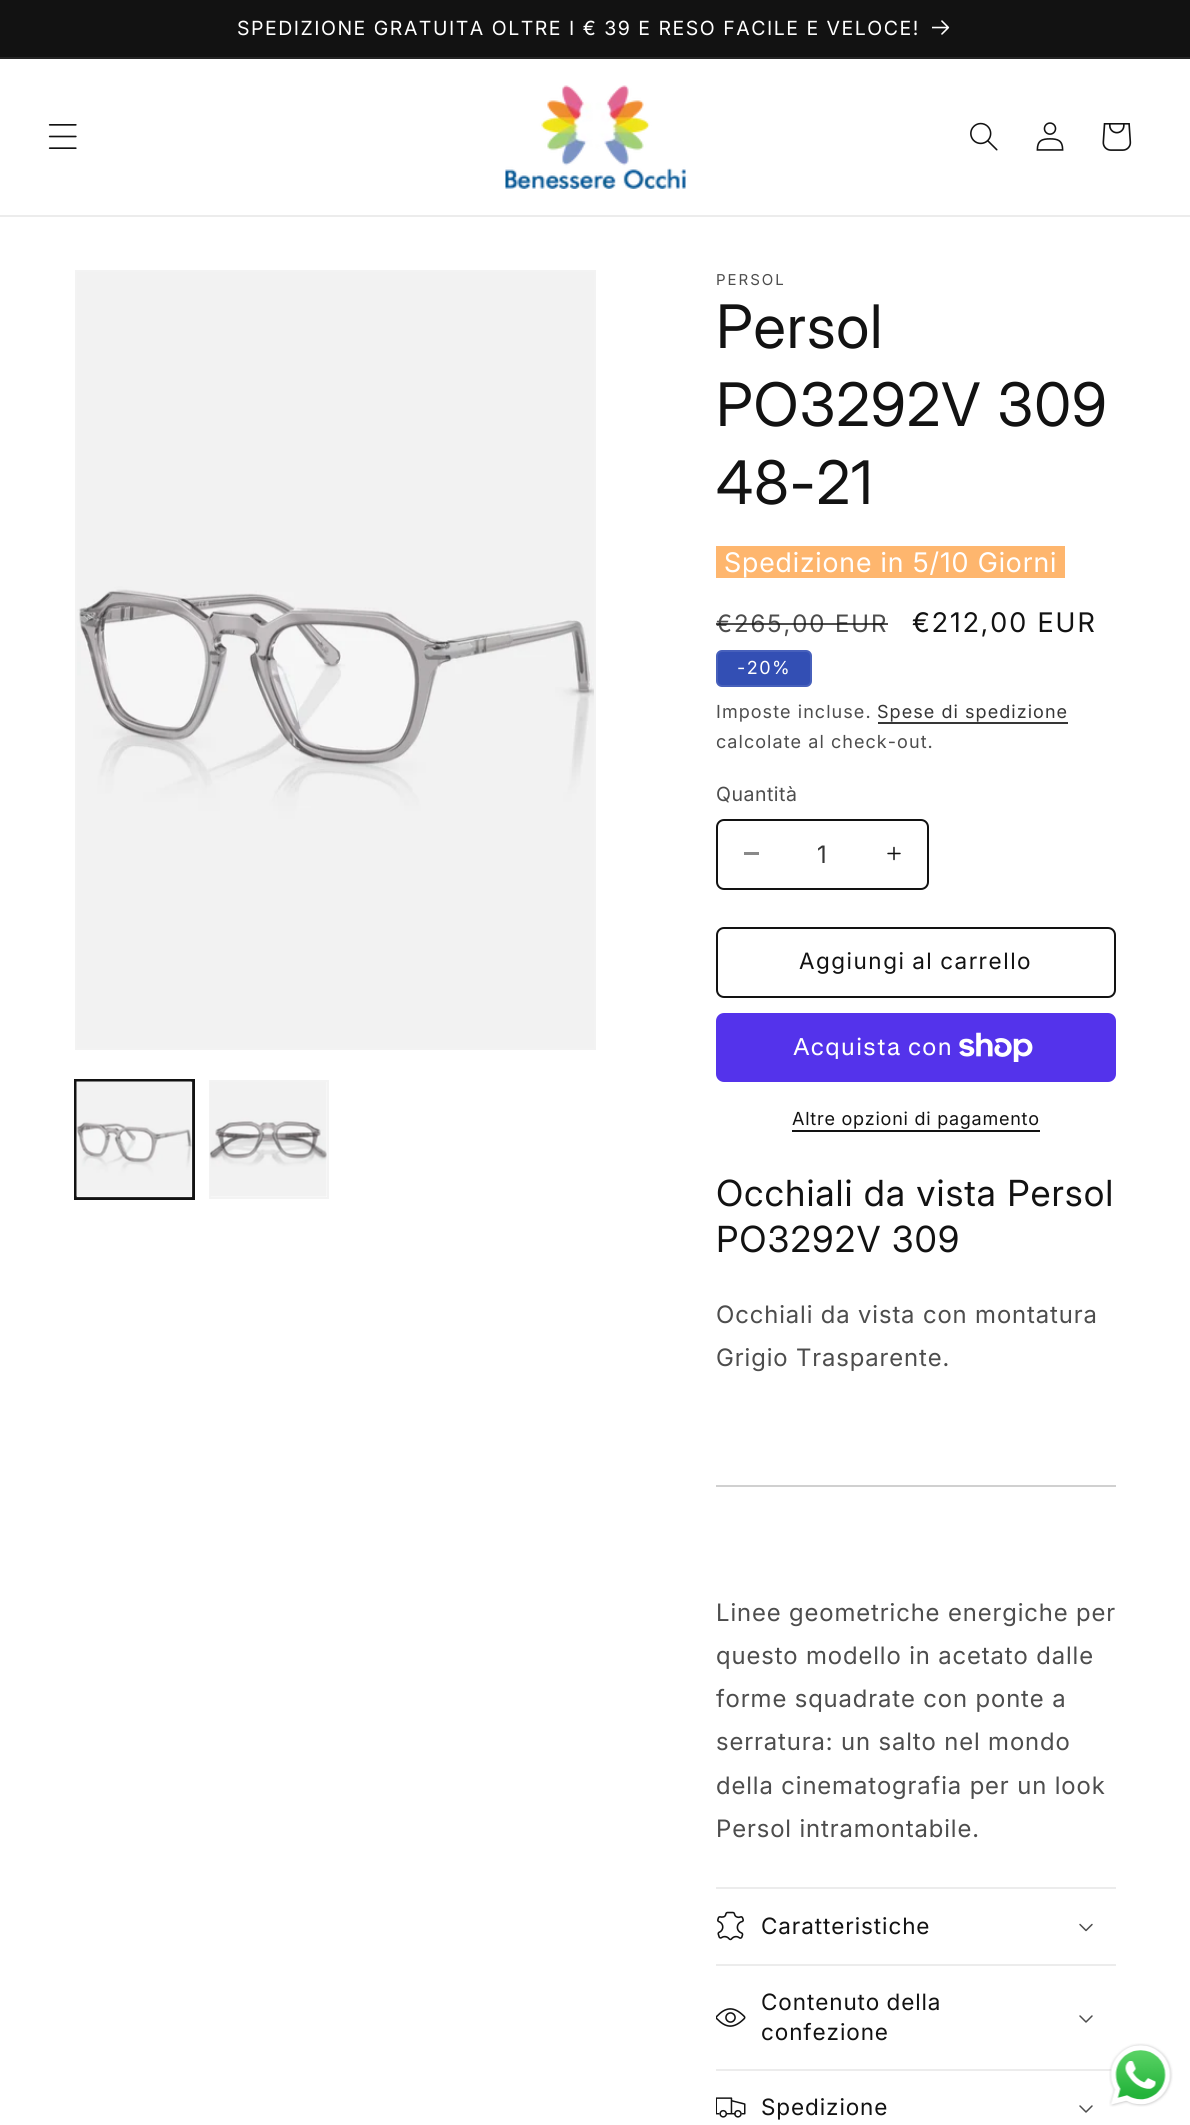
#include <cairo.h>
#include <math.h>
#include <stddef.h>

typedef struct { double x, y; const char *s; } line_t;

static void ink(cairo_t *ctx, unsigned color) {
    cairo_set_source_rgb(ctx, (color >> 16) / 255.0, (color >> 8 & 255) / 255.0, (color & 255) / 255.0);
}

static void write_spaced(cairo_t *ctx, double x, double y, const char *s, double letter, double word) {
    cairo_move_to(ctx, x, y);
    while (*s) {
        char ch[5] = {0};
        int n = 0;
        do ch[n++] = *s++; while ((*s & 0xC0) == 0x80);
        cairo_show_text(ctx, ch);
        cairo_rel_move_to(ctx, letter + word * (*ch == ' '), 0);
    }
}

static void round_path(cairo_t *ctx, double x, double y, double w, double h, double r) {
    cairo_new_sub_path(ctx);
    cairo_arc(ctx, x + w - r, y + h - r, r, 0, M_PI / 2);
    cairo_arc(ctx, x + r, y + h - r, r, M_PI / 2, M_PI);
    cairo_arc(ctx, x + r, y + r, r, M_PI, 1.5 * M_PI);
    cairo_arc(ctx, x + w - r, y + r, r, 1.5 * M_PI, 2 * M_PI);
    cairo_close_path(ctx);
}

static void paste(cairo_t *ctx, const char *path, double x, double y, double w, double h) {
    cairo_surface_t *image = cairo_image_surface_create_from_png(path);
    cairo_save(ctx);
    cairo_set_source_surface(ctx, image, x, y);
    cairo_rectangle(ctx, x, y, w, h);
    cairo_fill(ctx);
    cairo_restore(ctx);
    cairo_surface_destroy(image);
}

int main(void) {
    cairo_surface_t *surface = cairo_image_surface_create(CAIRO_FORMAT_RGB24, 1190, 2125);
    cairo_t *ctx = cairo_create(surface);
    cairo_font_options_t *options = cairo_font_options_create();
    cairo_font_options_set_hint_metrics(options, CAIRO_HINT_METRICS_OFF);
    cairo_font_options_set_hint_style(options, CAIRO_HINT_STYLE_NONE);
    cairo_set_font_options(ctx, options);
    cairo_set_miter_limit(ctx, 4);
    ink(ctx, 0xFFFFFF);
    cairo_paint(ctx);
    ink(ctx, 0x121212);
    cairo_rectangle(ctx, 0, 0, 1190, 57);
    cairo_fill(ctx);
    ink(ctx, 0x252525);
    cairo_rectangle(ctx, 0, 57, 1190, 2);
    cairo_fill(ctx);
    cairo_select_font_face(ctx, "Inter", CAIRO_FONT_SLANT_NORMAL, CAIRO_FONT_WEIGHT_NORMAL);
    cairo_set_font_size(ctx, 19.5);
    ink(ctx, 0xFFFFFF);
    write_spaced(ctx, 237, 35, "SPEDIZIONE GRATUITA OLTRE I € 39 E RESO FACILE E VELOCE!", 1.5, 0);
    paste(ctx, "media/1.png", 932, 20, 18, 15);
    ink(ctx, 0xECECEC);
    cairo_rectangle(ctx, 0, 215, 1190, 2);
    cairo_fill(ctx);
    paste(ctx, "media/2.png", 48, 124, 29, 25);
    paste(ctx, "media/3.png", 505, 85, 181, 104);
    paste(ctx, "media/4.png", 970, 122, 28, 29);
    paste(ctx, "media/5.png", 1036, 122, 28, 29);
    paste(ctx, "media/6.png", 1102, 123, 30, 28);
    cairo_rectangle(ctx, 76, 271, 519, 778);
    ink(ctx, 0xF3F3F3);
    cairo_stroke(ctx);
    paste(ctx, "media/7.png", 77, 272, 517, 776);
    cairo_rectangle(ctx, 75, 1080, 119, 119);
    ink(ctx, 0x121212);
    cairo_stroke(ctx);
    cairo_rectangle(ctx, 76, 1081, 117, 117);
    cairo_stroke(ctx);
    paste(ctx, "media/8.png", 76, 1081, 117, 117);
    cairo_rectangle(ctx, 210, 1081, 118, 117);
    ink(ctx, 0xF3F3F3);
    cairo_stroke(ctx);
    paste(ctx, "media/9.png", 209, 1082, 118, 115);
    cairo_set_font_size(ctx, 15);
    ink(ctx, 0x4D4D4D);
    write_spaced(ctx, 716, 285, "PERSOL", 2, 0);
    cairo_select_font_face(ctx, "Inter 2", CAIRO_FONT_SLANT_NORMAL, CAIRO_FONT_WEIGHT_NORMAL);
    cairo_set_font_size(ctx, 60);
    ink(ctx, 0x121212);
    {
        static const line_t items[] = {
            {716, 348, "Persol"},
            {716, 426, "PO3292V 309"},
            {716, 504, "48-21"},
        };
        for (size_t i = 0; i < sizeof items / sizeof *items; i++) {
            write_spaced(ctx, items[i].x, items[i].y, items[i].s, 0.9, 0);
        }
    }
    ink(ctx, 0xFEB66E);
    cairo_rectangle(ctx, 716, 546, 349, 32);
    cairo_fill(ctx);
    cairo_select_font_face(ctx, "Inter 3", CAIRO_FONT_SLANT_NORMAL, CAIRO_FONT_WEIGHT_NORMAL);
    cairo_set_font_size(ctx, 27);
    ink(ctx, 0xFFFFFF);
    write_spaced(ctx, 724, 572, "Spedizione in 5/10 Giorni", 0.9, 0);
    cairo_select_font_face(ctx, "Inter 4", CAIRO_FONT_SLANT_NORMAL, CAIRO_FONT_WEIGHT_NORMAL);
    cairo_set_font_size(ctx, 24);
    ink(ctx, 0x4D4D4D);
    write_spaced(ctx, 716, 632, "€265,00 EUR", 2, 0);
    cairo_set_source_rgba(ctx, 0.071, 0.071, 0.071, 0.75);
    cairo_rectangle(ctx, 716, 623, 172, 2);
    cairo_fill(ctx);
    cairo_select_font_face(ctx, "Inter 3", CAIRO_FONT_SLANT_NORMAL, CAIRO_FONT_WEIGHT_NORMAL);
    cairo_set_font_size(ctx, 27);
    ink(ctx, 0x121212);
    write_spaced(ctx, 912, 632, "€212,00 EUR", 2, 0);
    ink(ctx, 0x334FB4);
    round_path(ctx, 716, 650, 96, 37, 6);
    cairo_fill(ctx);
    round_path(ctx, 717, 651, 94, 35, 5);
    cairo_set_source_rgba(ctx, 1, 1, 1, 0.1);
    cairo_stroke(ctx);
    cairo_select_font_face(ctx, "Inter", CAIRO_FONT_SLANT_NORMAL, CAIRO_FONT_WEIGHT_NORMAL);
    cairo_set_font_size(ctx, 18);
    ink(ctx, 0xFFFFFF);
    write_spaced(ctx, 737, 674, "-20%", 1.5, 0);
    ink(ctx, 0x4D4D4D);
    write_spaced(ctx, 716, 718, "Imposte incluse.", 1.05, 0);
    ink(ctx, 0x363636);
    write_spaced(ctx, 877, 718, "Spese di spedizione", 1.05, 0);
    cairo_rectangle(ctx, 878, 722, 190, 2);
    cairo_fill(ctx);
    ink(ctx, 0x4D4D4D);
    write_spaced(ctx, 716, 748, "calcolate al check-out.", 1.05, 0);
    cairo_set_font_size(ctx, 19.5);
    write_spaced(ctx, 716, 801, "Quantità", 0.5, 0);
    ink(ctx, 0x898989);
    cairo_rectangle(ctx, 744, 852, 15, 3);
    cairo_fill(ctx);
    paste(ctx, "media/10.png", 887, 846, 14, 15);
    round_path(ctx, 717, 820, 211, 69, 7);
    ink(ctx, 0x121212);
    cairo_stroke(ctx);
    cairo_select_font_face(ctx, "Inter 4", CAIRO_FONT_SLANT_NORMAL, CAIRO_FONT_WEIGHT_NORMAL);
    cairo_set_font_size(ctx, 24);
    ink(ctx, 0x363636);
    cairo_move_to(ctx, 817, 863);
    cairo_show_text(ctx, "1");
    round_path(ctx, 717, 928, 398, 69, 7);
    ink(ctx, 0x121212);
    cairo_stroke(ctx);
    cairo_select_font_face(ctx, "Inter", CAIRO_FONT_SLANT_NORMAL, CAIRO_FONT_WEIGHT_NORMAL);
    cairo_set_font_size(ctx, 22.5);
    write_spaced(ctx, 799, 969, "Aggiungi al carrello", 1.5, -1);
    ink(ctx, 0x5433EB);
    round_path(ctx, 716, 1013, 400, 69, 8);
    cairo_fill(ctx);
    cairo_select_font_face(ctx, "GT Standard", CAIRO_FONT_SLANT_NORMAL, CAIRO_FONT_WEIGHT_NORMAL);
    cairo_set_font_size(ctx, 24);
    ink(ctx, 0xFFFFFF);
    write_spaced(ctx, 793, 1055, "Acquista con", 0.9, 0);
    paste(ctx, "media/11.png", 959, 1032, 74, 30);
    cairo_select_font_face(ctx, "Inter", CAIRO_FONT_SLANT_NORMAL, CAIRO_FONT_WEIGHT_NORMAL);
    cairo_set_font_size(ctx, 18);
    ink(ctx, 0x121212);
    write_spaced(ctx, 792, 1125, "Altre opzioni di pagamento", 0.75, 0);
    cairo_rectangle(ctx, 792, 1130, 248, 2);
    cairo_fill(ctx);
    cairo_select_font_face(ctx, "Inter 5", CAIRO_FONT_SLANT_NORMAL, CAIRO_FONT_WEIGHT_NORMAL);
    cairo_set_font_size(ctx, 36);
    write_spaced(ctx, 716, 1206, "Occhiali da vista Persol", 0.9, 0);
    write_spaced(ctx, 716, 1252, "PO3292V 309", 0.9, 0);
    cairo_select_font_face(ctx, "Inter 4", CAIRO_FONT_SLANT_NORMAL, CAIRO_FONT_WEIGHT_NORMAL);
    cairo_set_font_size(ctx, 24);
    ink(ctx, 0x4D4D4D);
    write_spaced(ctx, 716, 1323, "Occhiali da vista con montatura", 0.9, 0);
    write_spaced(ctx, 716, 1366, "Grigio Trasparente.", 0.9, 0);
    ink(ctx, 0xD0D0D0);
    cairo_rectangle(ctx, 716, 1485, 400, 2);
    cairo_fill(ctx);
    ink(ctx, 0x4D4D4D);
    {
        static const line_t items[] = {
            {716, 1621, "Linee geometriche energiche per"},
            {716, 1664, "questo modello in acetato dalle"},
            {716, 1707, "forme squadrate con ponte a"},
            {716, 1750, "serratura: un salto nel mondo"},
            {716, 1794, "della cinematografia per un look"},
            {716, 1837, "Persol intramontabile."},
        };
        for (size_t i = 0; i < sizeof items / sizeof *items; i++) {
            write_spaced(ctx, items[i].x, items[i].y, items[i].s, 0.9, 0);
        }
    }
    ink(ctx, 0xECECEC);
    cairo_rectangle(ctx, 716, 1887, 400, 2);
    cairo_fill(ctx);
    cairo_rectangle(ctx, 716, 1964, 400, 2);
    cairo_fill(ctx);
    paste(ctx, "media/12.png", 717, 1911, 27, 30);
    cairo_select_font_face(ctx, "Inter", CAIRO_FONT_SLANT_NORMAL, CAIRO_FONT_WEIGHT_NORMAL);
    cairo_set_font_size(ctx, 22.5);
    ink(ctx, 0x121212);
    write_spaced(ctx, 761, 1934, "Caratteristiche", 0.9, 0);
    paste(ctx, "media/13.png", 1079, 1923, 14, 9);
    ink(ctx, 0xECECEC);
    cairo_rectangle(ctx, 716, 2069, 400, 2);
    cairo_fill(ctx);
    paste(ctx, "media/14.png", 716, 2008, 30, 19);
    ink(ctx, 0x121212);
    write_spaced(ctx, 761, 2010, "Contenuto della", 0.9, -1);
    write_spaced(ctx, 761, 2040, "confezione", 0.9, 0);
    paste(ctx, "media/15.png", 1079, 2015, 14, 8);
    paste(ctx, "media/16.png", 716, 2097, 30, 21);
    write_spaced(ctx, 761, 2115, "Spedizione", 0.9, 0);
    paste(ctx, "media/15.png", 1079, 2105, 14, 8);
    paste(ctx, "media/17.png", 1109, 2043, 64, 64);
    cairo_surface_write_to_png(surface, "image.png");
    cairo_font_options_destroy(options);
    cairo_destroy(ctx);
    cairo_surface_destroy(surface);
    return 0;
}
